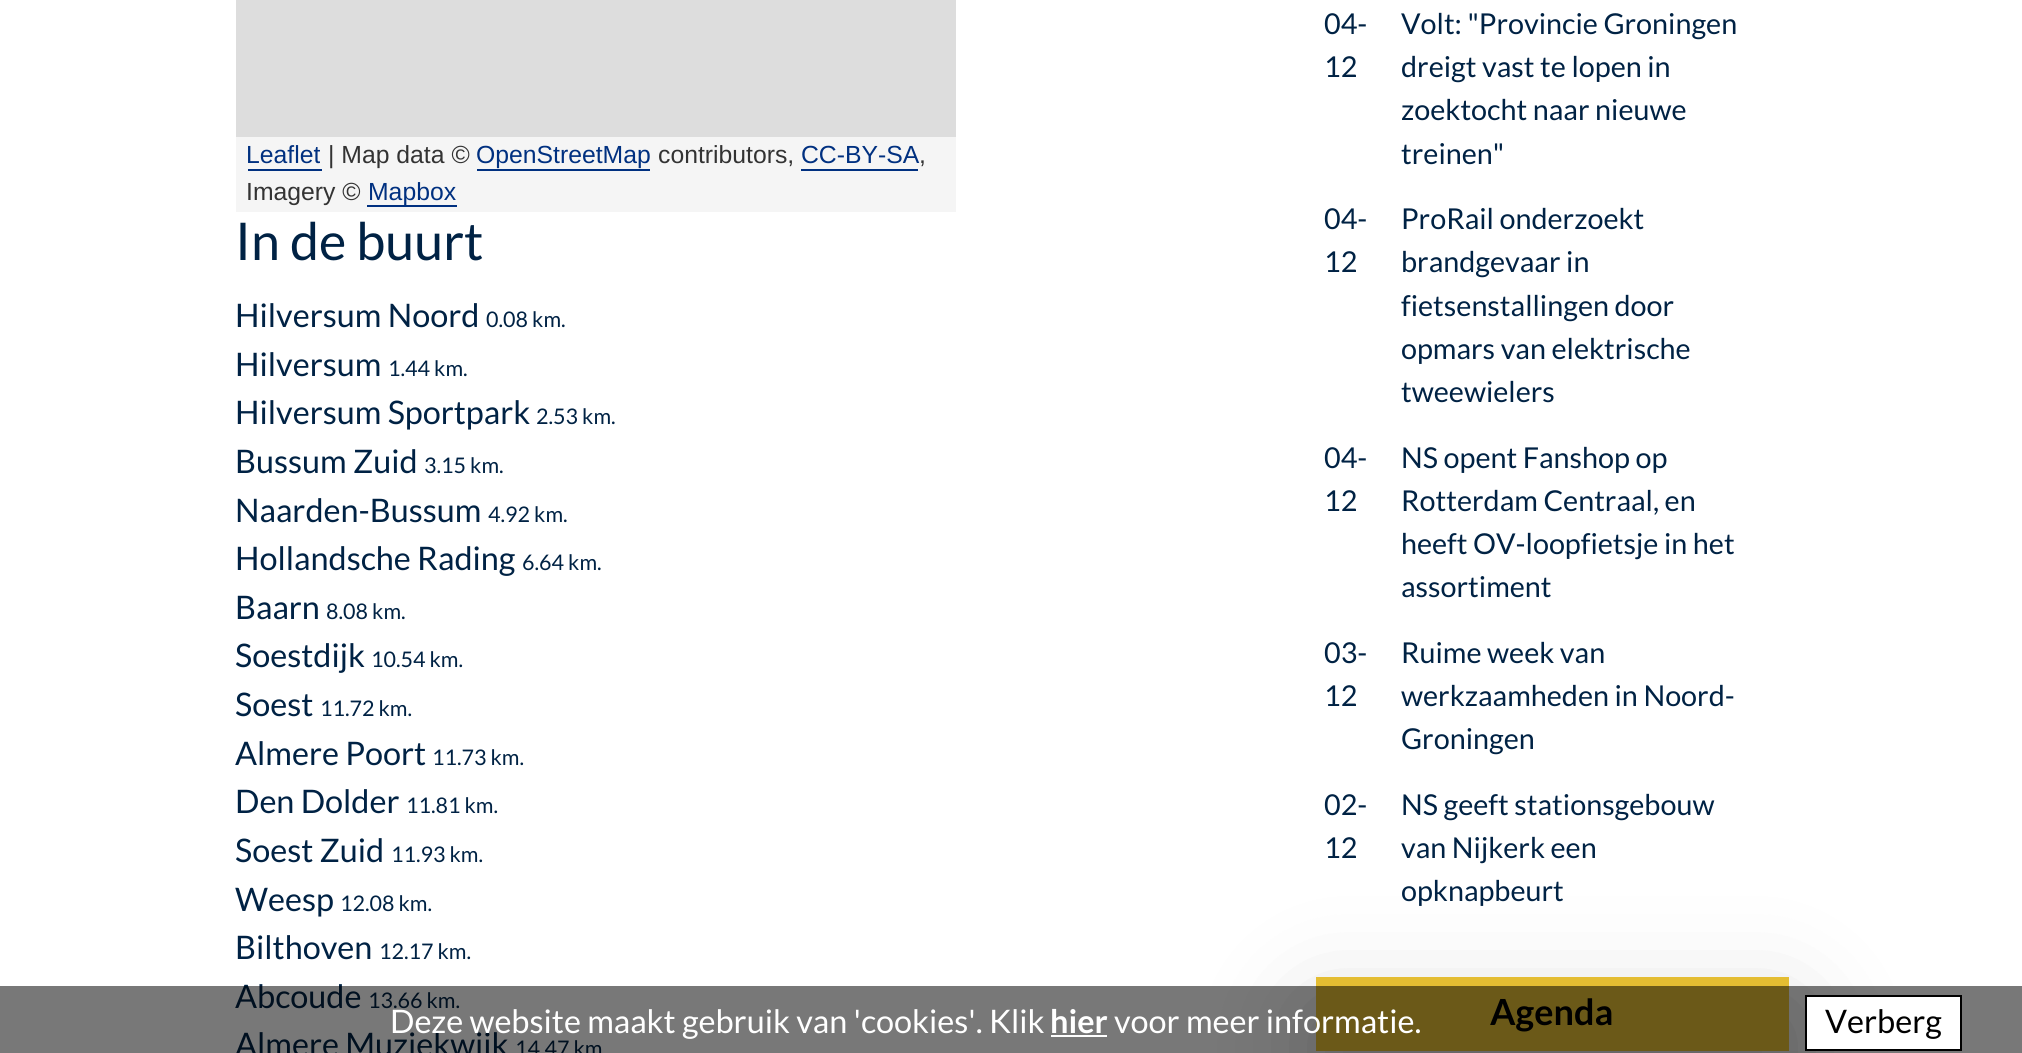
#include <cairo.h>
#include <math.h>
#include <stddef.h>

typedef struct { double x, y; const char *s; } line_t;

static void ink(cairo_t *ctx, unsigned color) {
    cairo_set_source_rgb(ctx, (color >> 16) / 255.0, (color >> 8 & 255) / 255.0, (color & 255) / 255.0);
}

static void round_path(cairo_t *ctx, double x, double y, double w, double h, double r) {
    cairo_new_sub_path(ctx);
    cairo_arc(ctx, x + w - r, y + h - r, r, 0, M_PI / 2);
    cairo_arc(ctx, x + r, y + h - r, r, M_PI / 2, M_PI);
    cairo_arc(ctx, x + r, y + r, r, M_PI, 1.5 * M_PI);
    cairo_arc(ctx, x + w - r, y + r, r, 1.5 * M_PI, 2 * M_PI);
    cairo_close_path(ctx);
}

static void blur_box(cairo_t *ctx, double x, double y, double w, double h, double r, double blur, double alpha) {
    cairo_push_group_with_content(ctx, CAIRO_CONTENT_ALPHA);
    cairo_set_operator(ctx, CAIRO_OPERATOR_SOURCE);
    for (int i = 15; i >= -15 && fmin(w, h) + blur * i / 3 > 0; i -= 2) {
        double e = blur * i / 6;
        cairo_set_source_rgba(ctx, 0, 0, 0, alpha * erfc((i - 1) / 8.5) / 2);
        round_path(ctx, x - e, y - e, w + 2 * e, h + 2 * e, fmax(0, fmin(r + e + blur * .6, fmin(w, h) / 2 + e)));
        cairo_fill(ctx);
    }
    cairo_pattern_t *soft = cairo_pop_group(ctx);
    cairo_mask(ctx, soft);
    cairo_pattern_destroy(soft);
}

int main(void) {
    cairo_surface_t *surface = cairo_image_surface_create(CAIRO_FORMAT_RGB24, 2022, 1053);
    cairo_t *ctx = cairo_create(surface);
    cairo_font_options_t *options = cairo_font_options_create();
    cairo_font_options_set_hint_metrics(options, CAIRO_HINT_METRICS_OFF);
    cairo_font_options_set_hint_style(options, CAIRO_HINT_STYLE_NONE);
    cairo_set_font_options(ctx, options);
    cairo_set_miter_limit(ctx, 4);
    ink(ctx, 0xFFFFFF);
    cairo_paint(ctx);
    ink(ctx, 0xDDDDDD);
    cairo_rectangle(ctx, 236, 0, 720, 137);
    cairo_fill(ctx);
    ink(ctx, 0xF5F5F5);
    cairo_rectangle(ctx, 236, 137, 720, 75);
    cairo_fill(ctx);
    cairo_select_font_face(ctx, "Liberation Sans", CAIRO_FONT_SLANT_NORMAL, CAIRO_FONT_WEIGHT_NORMAL);
    cairo_set_font_size(ctx, 24.75);
    ink(ctx, 0x003080);
    cairo_move_to(ctx, 246, 163);
    cairo_show_text(ctx, "Leaflet");
    cairo_rectangle(ctx, 248, 169, 74, 2);
    cairo_fill(ctx);
    ink(ctx, 0x333333);
    cairo_move_to(ctx, 328, 163);
    cairo_show_text(ctx, "| Map data ©");
    ink(ctx, 0x003080);
    cairo_move_to(ctx, 476, 163);
    cairo_show_text(ctx, "OpenStreetMap");
    cairo_rectangle(ctx, 477, 169, 173, 2);
    cairo_fill(ctx);
    ink(ctx, 0x333333);
    cairo_move_to(ctx, 658, 163);
    cairo_show_text(ctx, "contributors,");
    ink(ctx, 0x003080);
    cairo_move_to(ctx, 801, 163);
    cairo_show_text(ctx, "CC-BY-SA");
    cairo_rectangle(ctx, 801, 169, 117, 2);
    cairo_fill(ctx);
    ink(ctx, 0x333333);
    cairo_move_to(ctx, 919, 163);
    cairo_show_text(ctx, ",");
    cairo_move_to(ctx, 246, 200);
    cairo_show_text(ctx, "Imagery ©");
    ink(ctx, 0x003080);
    cairo_rectangle(ctx, 367, 205, 90, 2);
    cairo_fill(ctx);
    cairo_move_to(ctx, 368, 200);
    cairo_show_text(ctx, "Mapbox");
    cairo_select_font_face(ctx, "Lato", CAIRO_FONT_SLANT_NORMAL, CAIRO_FONT_WEIGHT_NORMAL);
    cairo_set_font_size(ctx, 52);
    ink(ctx, 0x002244);
    cairo_move_to(ctx, 235, 260);
    cairo_show_text(ctx, "In de buurt");
    cairo_set_font_size(ctx, 32.4);
    cairo_move_to(ctx, 235, 327);
    cairo_show_text(ctx, "Hilversum Noord");
    cairo_set_font_size(ctx, 21.5);
    cairo_move_to(ctx, 486, 327);
    cairo_show_text(ctx, "0.08 km.");
    cairo_set_font_size(ctx, 32.4);
    cairo_move_to(ctx, 235, 376);
    cairo_show_text(ctx, "Hilversum");
    cairo_set_font_size(ctx, 21.5);
    cairo_move_to(ctx, 388, 376);
    cairo_show_text(ctx, "1.44 km.");
    cairo_set_font_size(ctx, 32.4);
    cairo_move_to(ctx, 235, 424);
    cairo_show_text(ctx, "Hilversum Sportpark");
    cairo_set_font_size(ctx, 21.5);
    cairo_move_to(ctx, 536, 424);
    cairo_show_text(ctx, "2.53 km.");
    cairo_set_font_size(ctx, 32.4);
    cairo_move_to(ctx, 235, 473);
    cairo_show_text(ctx, "Bussum Zuid");
    cairo_set_font_size(ctx, 21.5);
    cairo_move_to(ctx, 424, 473);
    cairo_show_text(ctx, "3.15 km.");
    cairo_set_font_size(ctx, 32.4);
    cairo_move_to(ctx, 235, 522);
    cairo_show_text(ctx, "Naarden-Bussum");
    cairo_set_font_size(ctx, 21.5);
    cairo_move_to(ctx, 488, 522);
    cairo_show_text(ctx, "4.92 km.");
    cairo_set_font_size(ctx, 32.4);
    cairo_move_to(ctx, 235, 570);
    cairo_show_text(ctx, "Hollandsche Rading");
    cairo_set_font_size(ctx, 21.5);
    cairo_move_to(ctx, 522, 570);
    cairo_show_text(ctx, "6.64 km.");
    cairo_set_font_size(ctx, 32.4);
    cairo_move_to(ctx, 235, 619);
    cairo_show_text(ctx, "Baarn");
    cairo_set_font_size(ctx, 21.5);
    cairo_move_to(ctx, 326, 619);
    cairo_show_text(ctx, "8.08 km.");
    cairo_set_font_size(ctx, 32.4);
    cairo_move_to(ctx, 235, 667);
    cairo_show_text(ctx, "Soestdijk");
    cairo_set_font_size(ctx, 21.5);
    cairo_move_to(ctx, 371, 667);
    cairo_show_text(ctx, "10.54 km.");
    cairo_set_font_size(ctx, 32.4);
    cairo_move_to(ctx, 235, 716);
    cairo_show_text(ctx, "Soest");
    cairo_set_font_size(ctx, 21.5);
    cairo_move_to(ctx, 320, 716);
    cairo_show_text(ctx, "11.72 km.");
    cairo_set_font_size(ctx, 32.4);
    cairo_move_to(ctx, 235, 765);
    cairo_show_text(ctx, "Almere Poort");
    cairo_set_font_size(ctx, 21.5);
    cairo_move_to(ctx, 432, 765);
    cairo_show_text(ctx, "11.73 km.");
    cairo_set_font_size(ctx, 32.4);
    cairo_move_to(ctx, 235, 813);
    cairo_show_text(ctx, "Den Dolder");
    cairo_set_font_size(ctx, 21.5);
    cairo_move_to(ctx, 406, 813);
    cairo_show_text(ctx, "11.81 km.");
    cairo_set_font_size(ctx, 32.4);
    cairo_move_to(ctx, 235, 862);
    cairo_show_text(ctx, "Soest Zuid");
    cairo_set_font_size(ctx, 21.5);
    cairo_move_to(ctx, 391, 862);
    cairo_show_text(ctx, "11.93 km.");
    cairo_set_font_size(ctx, 32.4);
    cairo_move_to(ctx, 235, 911);
    cairo_show_text(ctx, "Weesp");
    cairo_set_font_size(ctx, 21.5);
    cairo_move_to(ctx, 340, 911);
    cairo_show_text(ctx, "12.08 km.");
    cairo_set_font_size(ctx, 32.4);
    cairo_move_to(ctx, 235, 959);
    cairo_show_text(ctx, "Bilthoven");
    cairo_set_font_size(ctx, 21.5);
    cairo_move_to(ctx, 379, 959);
    cairo_show_text(ctx, "12.17 km.");
    cairo_set_font_size(ctx, 32.4);
    cairo_move_to(ctx, 235, 1008);
    cairo_show_text(ctx, "Abcoude");
    cairo_set_font_size(ctx, 21.5);
    cairo_move_to(ctx, 368, 1008);
    cairo_show_text(ctx, "13.66 km.");
    cairo_set_font_size(ctx, 32.4);
    cairo_move_to(ctx, 235, 1056);
    cairo_show_text(ctx, "Almere Muziekwijk");
    cairo_set_font_size(ctx, 21.5);
    cairo_move_to(ctx, 515, 1056);
    cairo_show_text(ctx, "14.47 km");
    cairo_set_font_size(ctx, 28.75);
    {
        static const line_t items[] = {
            {1324, 34, "04-"},
            {1324, 77, "12"},
            {1401, 34, "Volt: \"Provincie Groningen"},
            {1401, 77, "dreigt vast te lopen in"},
            {1401, 120, "zoektocht naar nieuwe"},
            {1401, 164, "treinen\""},
            {1324, 229, "04-"},
            {1324, 272, "12"},
            {1401, 229, "ProRail onderzoekt"},
            {1401, 272, "brandgevaar in"},
            {1401, 316, "fietsenstallingen door"},
            {1401, 359, "opmars van elektrische"},
            {1401, 402, "tweewielers"},
            {1324, 468, "04-"},
            {1324, 511, "12"},
            {1401, 468, "NS opent Fanshop op"},
            {1401, 511, "Rotterdam Centraal, en"},
            {1401, 554, "heeft OV-loopfietsje in het"},
            {1401, 597, "assortiment"},
            {1324, 663, "03-"},
            {1324, 706, "12"},
            {1401, 663, "Ruime week van"},
            {1401, 706, "werkzaamheden in Noord-"},
            {1401, 749, "Groningen"},
            {1324, 815, "02-"},
            {1324, 858, "12"},
            {1401, 815, "NS geeft stationsgebouw"},
            {1401, 858, "van Nijkerk een"},
            {1401, 901, "opknapbeurt"},
        };
        for (size_t i = 0; i < sizeof items / sizeof *items; i++) {
            cairo_move_to(ctx, items[i].x, items[i].y);
            cairo_show_text(ctx, items[i].s);
        }
    }
    ink(ctx, 0x000000);
    blur_box(ctx, 1316, 1013, 473, 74, 0, 54, 0.18);
    ink(ctx, 0xE4BD32);
    cairo_rectangle(ctx, 1316, 977, 473, 74);
    cairo_fill(ctx);
    cairo_select_font_face(ctx, "Lato", CAIRO_FONT_SLANT_NORMAL, CAIRO_FONT_WEIGHT_BOLD);
    cairo_set_font_size(ctx, 36);
    ink(ctx, 0x000000);
    cairo_move_to(ctx, 1490, 1025);
    cairo_show_text(ctx, "Agenda");
    cairo_set_source_rgba(ctx, 0, 0, 0, 0.53);
    cairo_rectangle(ctx, 0, 986, 2022, 67);
    cairo_fill(ctx);
    cairo_select_font_face(ctx, "Lato", CAIRO_FONT_SLANT_NORMAL, CAIRO_FONT_WEIGHT_NORMAL);
    cairo_set_font_size(ctx, 32.4);
    ink(ctx, 0xFFFFFF);
    cairo_move_to(ctx, 390, 1033);
    cairo_show_text(ctx, "Deze website maakt gebruik van 'cookies'. Klik");
    cairo_select_font_face(ctx, "Lato", CAIRO_FONT_SLANT_NORMAL, CAIRO_FONT_WEIGHT_BOLD);
    cairo_move_to(ctx, 1050, 1033);
    cairo_show_text(ctx, "hier");
    cairo_rectangle(ctx, 1051, 1035, 56, 2);
    cairo_fill(ctx);
    cairo_select_font_face(ctx, "Lato", CAIRO_FONT_SLANT_NORMAL, CAIRO_FONT_WEIGHT_NORMAL);
    cairo_move_to(ctx, 1114, 1033);
    cairo_show_text(ctx, "voor meer informatie.");
    cairo_rectangle(ctx, 1806, 996, 155, 54);
    cairo_fill_preserve(ctx);
    ink(ctx, 0x000000);
    cairo_stroke(ctx);
    cairo_move_to(ctx, 1825, 1033);
    cairo_show_text(ctx, "Verberg");
    cairo_surface_write_to_png(surface, "image.png");
    cairo_font_options_destroy(options);
    cairo_destroy(ctx);
    cairo_surface_destroy(surface);
    return 0;
}
